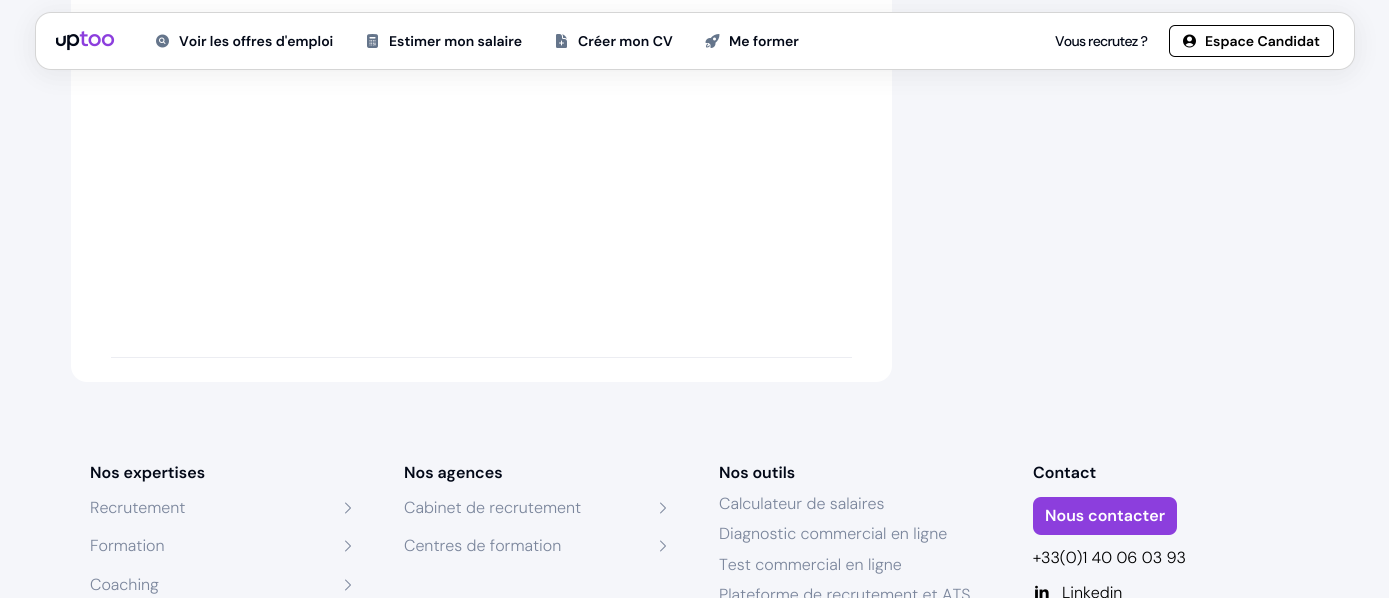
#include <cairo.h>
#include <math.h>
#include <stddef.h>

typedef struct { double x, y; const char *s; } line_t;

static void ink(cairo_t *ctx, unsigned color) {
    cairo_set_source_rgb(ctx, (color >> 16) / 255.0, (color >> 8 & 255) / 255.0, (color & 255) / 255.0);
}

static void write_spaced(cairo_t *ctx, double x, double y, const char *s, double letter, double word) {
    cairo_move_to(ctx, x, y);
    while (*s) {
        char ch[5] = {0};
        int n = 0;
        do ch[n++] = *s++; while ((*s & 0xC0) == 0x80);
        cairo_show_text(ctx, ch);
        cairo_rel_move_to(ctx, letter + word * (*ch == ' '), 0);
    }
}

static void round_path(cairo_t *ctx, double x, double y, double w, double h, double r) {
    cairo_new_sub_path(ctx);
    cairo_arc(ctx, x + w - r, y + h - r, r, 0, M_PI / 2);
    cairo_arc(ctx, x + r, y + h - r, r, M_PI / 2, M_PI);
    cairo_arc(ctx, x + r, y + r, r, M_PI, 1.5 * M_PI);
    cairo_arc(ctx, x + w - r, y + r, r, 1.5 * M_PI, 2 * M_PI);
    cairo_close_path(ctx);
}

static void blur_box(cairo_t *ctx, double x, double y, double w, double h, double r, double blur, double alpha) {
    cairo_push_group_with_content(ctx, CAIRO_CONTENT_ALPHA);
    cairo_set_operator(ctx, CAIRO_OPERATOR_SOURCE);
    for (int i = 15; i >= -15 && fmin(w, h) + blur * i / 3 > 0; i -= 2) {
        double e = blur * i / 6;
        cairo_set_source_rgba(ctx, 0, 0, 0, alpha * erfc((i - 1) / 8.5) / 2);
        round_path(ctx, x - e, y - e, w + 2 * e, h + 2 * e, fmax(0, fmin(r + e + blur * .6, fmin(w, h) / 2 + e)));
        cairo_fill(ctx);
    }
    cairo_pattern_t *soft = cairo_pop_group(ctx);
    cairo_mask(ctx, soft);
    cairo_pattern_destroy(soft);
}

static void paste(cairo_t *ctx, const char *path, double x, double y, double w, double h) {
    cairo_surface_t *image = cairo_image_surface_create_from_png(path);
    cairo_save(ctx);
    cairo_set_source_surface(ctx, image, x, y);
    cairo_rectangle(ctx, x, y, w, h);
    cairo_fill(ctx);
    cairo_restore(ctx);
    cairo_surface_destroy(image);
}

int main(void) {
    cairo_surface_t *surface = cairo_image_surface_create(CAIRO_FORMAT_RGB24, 1389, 598);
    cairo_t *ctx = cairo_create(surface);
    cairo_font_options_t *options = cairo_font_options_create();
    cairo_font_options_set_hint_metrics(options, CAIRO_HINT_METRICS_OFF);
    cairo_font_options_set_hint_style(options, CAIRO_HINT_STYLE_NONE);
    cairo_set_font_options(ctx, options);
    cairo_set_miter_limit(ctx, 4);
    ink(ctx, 0xF5F6FA);
    cairo_paint(ctx);
    ink(ctx, 0xFFFFFF);
    round_path(ctx, 71, -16, 821, 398, 16);
    cairo_fill(ctx);
    ink(ctx, 0xECEDF2);
    cairo_rectangle(ctx, 111, 357, 741, 1);
    cairo_fill(ctx);
    ink(ctx, 0x000000);
    blur_box(ctx, 35, 16, 1320, 58, 16, 14, 0.07);
    ink(ctx, 0xFFFFFF);
    round_path(ctx, 35.5, 12.5, 1319, 57, 15.5);
    cairo_fill_preserve(ctx);
    ink(ctx, 0xD5D5D5);
    cairo_set_line_width(ctx, 1);
    cairo_stroke(ctx);
    paste(ctx, "media/1.png", 56, 31, 59, 20);
    paste(ctx, "media/2.png", 156, 34, 13, 14);
    cairo_select_font_face(ctx, "DM Sans SemiBold", CAIRO_FONT_SLANT_NORMAL, CAIRO_FONT_WEIGHT_NORMAL);
    cairo_set_font_size(ctx, 14);
    ink(ctx, 0x020817);
    cairo_move_to(ctx, 179, 46);
    cairo_show_text(ctx, "Voir les offres d'emploi");
    paste(ctx, "media/3.png", 367, 34, 11, 14);
    cairo_move_to(ctx, 389, 46);
    cairo_show_text(ctx, "Estimer mon salaire");
    paste(ctx, "media/4.png", 556, 34, 11, 14);
    cairo_move_to(ctx, 578, 46);
    cairo_show_text(ctx, "Créer mon CV");
    paste(ctx, "media/5.png", 705, 34, 15, 14);
    cairo_move_to(ctx, 729, 46);
    cairo_show_text(ctx, "Me former");
    cairo_select_font_face(ctx, "DM Sans Medium", CAIRO_FONT_SLANT_NORMAL, CAIRO_FONT_WEIGHT_NORMAL);
    write_spaced(ctx, 1055, 46, "Vous recrutez ?", -0.75, 0);
    round_path(ctx, 1169.5, 25.5, 164, 31, 5.5);
    ink(ctx, 0x000000);
    cairo_stroke(ctx);
    paste(ctx, "media/6.png", 1183, 34, 13, 14);
    cairo_select_font_face(ctx, "DM Sans SemiBold", CAIRO_FONT_SLANT_NORMAL, CAIRO_FONT_WEIGHT_NORMAL);
    cairo_move_to(ctx, 1205, 46);
    cairo_show_text(ctx, "Espace Candidat");
    cairo_set_font_size(ctx, 16);
    ink(ctx, 0x020817);
    cairo_move_to(ctx, 90, 478);
    cairo_show_text(ctx, "Nos expertises");
    cairo_select_font_face(ctx, "DM Sans Light", CAIRO_FONT_SLANT_NORMAL, CAIRO_FONT_WEIGHT_NORMAL);
    ink(ctx, 0x7B869C);
    cairo_move_to(ctx, 90, 513);
    cairo_show_text(ctx, "Recrutement");
    paste(ctx, "media/7.png", 345, 502, 6, 12);
    cairo_move_to(ctx, 90, 551);
    cairo_show_text(ctx, "Formation");
    paste(ctx, "media/7.png", 345, 540, 6, 12);
    cairo_move_to(ctx, 90, 590);
    cairo_show_text(ctx, "Coaching");
    paste(ctx, "media/7.png", 345, 579, 6, 12);
    cairo_select_font_face(ctx, "DM Sans SemiBold", CAIRO_FONT_SLANT_NORMAL, CAIRO_FONT_WEIGHT_NORMAL);
    ink(ctx, 0x020817);
    cairo_move_to(ctx, 404, 478);
    cairo_show_text(ctx, "Nos agences");
    cairo_select_font_face(ctx, "DM Sans Light", CAIRO_FONT_SLANT_NORMAL, CAIRO_FONT_WEIGHT_NORMAL);
    ink(ctx, 0x7B869C);
    cairo_move_to(ctx, 404, 513);
    cairo_show_text(ctx, "Cabinet de recrutement");
    paste(ctx, "media/7.png", 660, 502, 6, 12);
    cairo_move_to(ctx, 404, 551);
    cairo_show_text(ctx, "Centres de formation");
    paste(ctx, "media/7.png", 660, 540, 6, 12);
    cairo_select_font_face(ctx, "DM Sans SemiBold", CAIRO_FONT_SLANT_NORMAL, CAIRO_FONT_WEIGHT_NORMAL);
    ink(ctx, 0x020817);
    cairo_move_to(ctx, 719, 478);
    cairo_show_text(ctx, "Nos outils");
    cairo_select_font_face(ctx, "DM Sans Light", CAIRO_FONT_SLANT_NORMAL, CAIRO_FONT_WEIGHT_NORMAL);
    ink(ctx, 0x7B869C);
    {
        static const line_t items[] = {
            {719, 509, "Calculateur de salaires"},
            {719, 539, "Diagnostic commercial en ligne"},
            {719, 570, "Test commercial en ligne"},
            {719, 600, "Plateforme de recrutement et ATS"},
        };
        for (size_t i = 0; i < sizeof items / sizeof *items; i++) {
            cairo_move_to(ctx, items[i].x, items[i].y);
            cairo_show_text(ctx, items[i].s);
        }
    }
    cairo_select_font_face(ctx, "DM Sans SemiBold", CAIRO_FONT_SLANT_NORMAL, CAIRO_FONT_WEIGHT_NORMAL);
    ink(ctx, 0x020817);
    cairo_move_to(ctx, 1033, 478);
    cairo_show_text(ctx, "Contact");
    ink(ctx, 0x8C3EDD);
    round_path(ctx, 1033, 497, 144, 38, 8);
    cairo_fill(ctx);
    ink(ctx, 0xFFFFFF);
    cairo_move_to(ctx, 1045, 521);
    cairo_show_text(ctx, "Nous contacter");
    cairo_select_font_face(ctx, "DM Sans Light", CAIRO_FONT_SLANT_NORMAL, CAIRO_FONT_WEIGHT_NORMAL);
    ink(ctx, 0x000000);
    cairo_move_to(ctx, 1033, 563);
    cairo_show_text(ctx, "+33(0)1 40 06 03 93");
    paste(ctx, "media/8.png", 1035, 585, 14, 13);
    cairo_move_to(ctx, 1062, 598);
    cairo_show_text(ctx, "Linkedin");
    cairo_surface_write_to_png(surface, "image.png");
    cairo_font_options_destroy(options);
    cairo_destroy(ctx);
    cairo_surface_destroy(surface);
    return 0;
}
